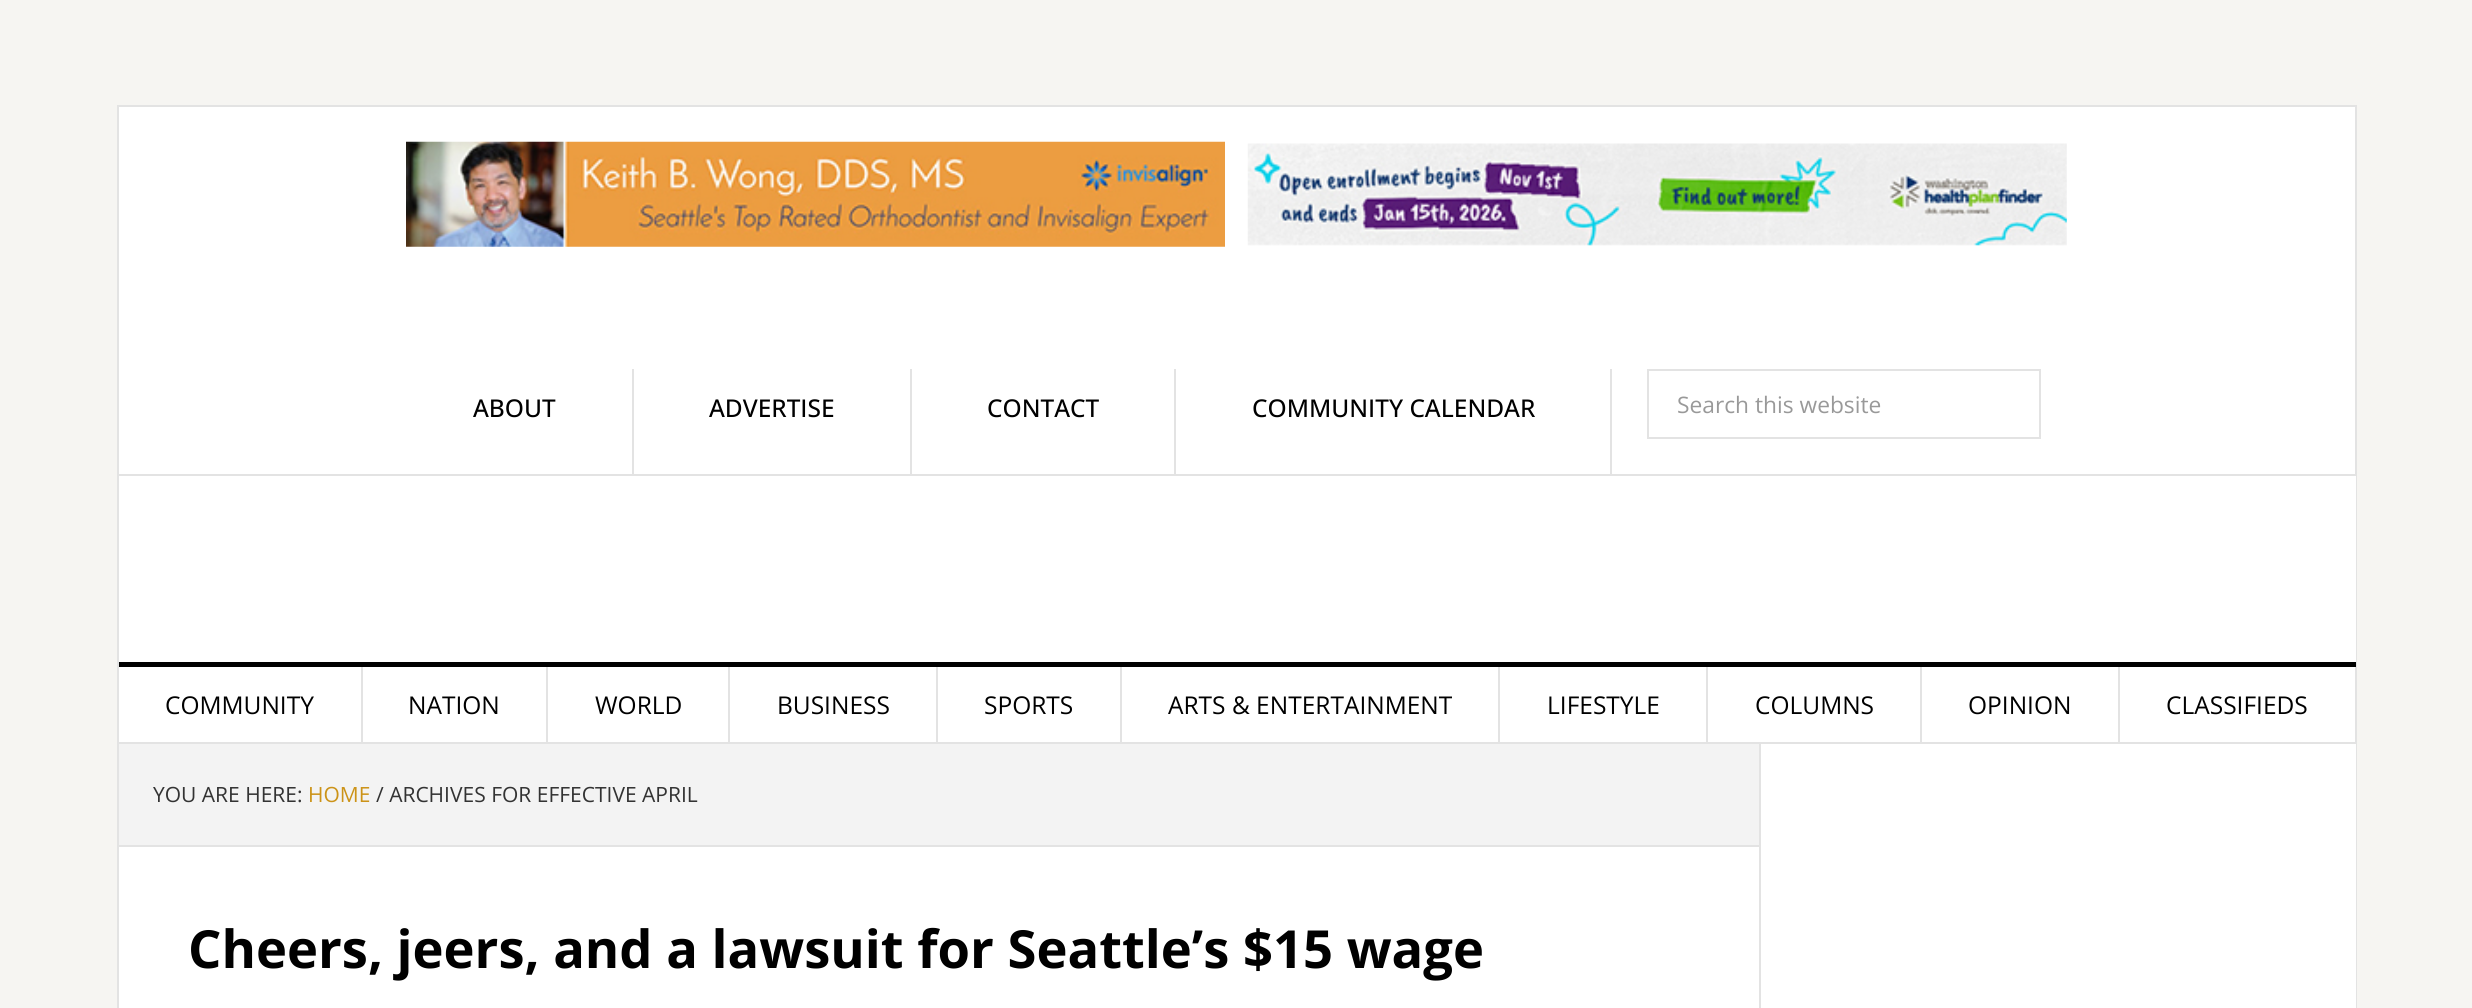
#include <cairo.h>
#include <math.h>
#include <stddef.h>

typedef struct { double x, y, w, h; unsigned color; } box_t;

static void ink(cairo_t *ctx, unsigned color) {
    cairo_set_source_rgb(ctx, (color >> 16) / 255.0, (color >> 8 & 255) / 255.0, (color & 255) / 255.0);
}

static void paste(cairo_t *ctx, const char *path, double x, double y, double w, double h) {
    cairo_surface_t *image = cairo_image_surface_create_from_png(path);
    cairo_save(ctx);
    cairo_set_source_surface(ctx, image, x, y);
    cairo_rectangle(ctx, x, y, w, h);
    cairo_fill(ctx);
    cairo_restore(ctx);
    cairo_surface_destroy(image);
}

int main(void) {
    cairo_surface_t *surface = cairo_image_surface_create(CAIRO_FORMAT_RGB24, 2472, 1008);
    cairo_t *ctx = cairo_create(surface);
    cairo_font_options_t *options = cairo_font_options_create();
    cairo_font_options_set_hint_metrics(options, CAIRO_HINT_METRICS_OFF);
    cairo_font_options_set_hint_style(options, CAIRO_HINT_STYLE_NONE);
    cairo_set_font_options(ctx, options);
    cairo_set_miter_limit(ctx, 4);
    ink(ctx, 0xF6F5F2);
    cairo_paint(ctx);
    ink(ctx, 0xFFFFFF);
    cairo_rectangle(ctx, 118, 106, 2238, 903);
    cairo_fill_preserve(ctx);
    ink(ctx, 0xE3E3E3);
    cairo_stroke(ctx);
    paste(ctx, "media/1.png", 406, 141, 819, 106);
    paste(ctx, "media/2.png", 1247, 143, 820, 103);
    cairo_rectangle(ctx, 119, 474, 2237, 2);
    cairo_fill(ctx);
    cairo_rectangle(ctx, 632, 369, 2, 105);
    cairo_fill(ctx);
    cairo_select_font_face(ctx, "Open Sans Medium", CAIRO_FONT_SLANT_NORMAL, CAIRO_FONT_WEIGHT_NORMAL);
    cairo_set_font_size(ctx, 24.5);
    ink(ctx, 0x000000);
    cairo_move_to(ctx, 473, 417);
    cairo_show_text(ctx, "ABOUT");
    ink(ctx, 0xE3E3E3);
    cairo_rectangle(ctx, 910, 369, 2, 105);
    cairo_fill(ctx);
    ink(ctx, 0x000000);
    cairo_move_to(ctx, 709, 417);
    cairo_show_text(ctx, "ADVERTISE");
    ink(ctx, 0xE3E3E3);
    cairo_rectangle(ctx, 1174, 369, 2, 105);
    cairo_fill(ctx);
    ink(ctx, 0x000000);
    cairo_move_to(ctx, 987, 417);
    cairo_show_text(ctx, "CONTACT");
    ink(ctx, 0xE3E3E3);
    cairo_rectangle(ctx, 1610, 369, 2, 105);
    cairo_fill(ctx);
    ink(ctx, 0x000000);
    cairo_move_to(ctx, 1252, 417);
    cairo_show_text(ctx, "COMMUNITY CALENDAR");
    cairo_rectangle(ctx, 1648, 370, 392, 68);
    ink(ctx, 0xE3E3E3);
    cairo_stroke(ctx);
    cairo_select_font_face(ctx, "Open Sans", CAIRO_FONT_SLANT_NORMAL, CAIRO_FONT_WEIGHT_NORMAL);
    cairo_set_font_size(ctx, 22.75);
    ink(ctx, 0x999999);
    cairo_move_to(ctx, 1677, 413);
    cairo_show_text(ctx, "Search this website");
    {
        static const box_t items[] = {
            {2355, 476, 1, 186, 0xFFFFFF},
            {119, 662, 2237, 5, 0x000000},
            {119, 742, 2237, 2, 0xE3E3E3},
            {361, 667, 2, 75, 0xE3E3E3},
        };
        for (size_t i = 0; i < sizeof items / sizeof *items; i++) {
            ink(ctx, items[i].color);
            cairo_rectangle(ctx, items[i].x, items[i].y, items[i].w, items[i].h);
            cairo_fill(ctx);
        }
    }
    cairo_set_font_size(ctx, 24.5);
    ink(ctx, 0x000000);
    cairo_move_to(ctx, 165, 714);
    cairo_show_text(ctx, "COMMUNITY");
    ink(ctx, 0xE3E3E3);
    cairo_rectangle(ctx, 546, 667, 2, 75);
    cairo_fill(ctx);
    ink(ctx, 0x000000);
    cairo_move_to(ctx, 408, 714);
    cairo_show_text(ctx, "NATION");
    ink(ctx, 0xE3E3E3);
    cairo_rectangle(ctx, 728, 667, 2, 75);
    cairo_fill(ctx);
    ink(ctx, 0x000000);
    cairo_move_to(ctx, 595, 714);
    cairo_show_text(ctx, "WORLD");
    ink(ctx, 0xE3E3E3);
    cairo_rectangle(ctx, 936, 667, 2, 75);
    cairo_fill(ctx);
    ink(ctx, 0x000000);
    cairo_move_to(ctx, 777, 714);
    cairo_show_text(ctx, "BUSINESS");
    ink(ctx, 0xE3E3E3);
    cairo_rectangle(ctx, 1120, 667, 2, 75);
    cairo_fill(ctx);
    ink(ctx, 0x000000);
    cairo_move_to(ctx, 984, 714);
    cairo_show_text(ctx, "SPORTS");
    ink(ctx, 0xE3E3E3);
    cairo_rectangle(ctx, 1498, 667, 2, 75);
    cairo_fill(ctx);
    ink(ctx, 0x000000);
    cairo_move_to(ctx, 1168, 714);
    cairo_show_text(ctx, "ARTS & ENTERTAINMENT");
    ink(ctx, 0xE3E3E3);
    cairo_rectangle(ctx, 1706, 667, 2, 75);
    cairo_fill(ctx);
    ink(ctx, 0x000000);
    cairo_move_to(ctx, 1547, 714);
    cairo_show_text(ctx, "LIFESTYLE");
    ink(ctx, 0xE3E3E3);
    cairo_rectangle(ctx, 1920, 667, 2, 75);
    cairo_fill(ctx);
    ink(ctx, 0x000000);
    cairo_move_to(ctx, 1755, 714);
    cairo_show_text(ctx, "COLUMNS");
    ink(ctx, 0xE3E3E3);
    cairo_rectangle(ctx, 2118, 667, 2, 75);
    cairo_fill(ctx);
    ink(ctx, 0x000000);
    cairo_move_to(ctx, 1968, 714);
    cairo_show_text(ctx, "OPINION");
    cairo_move_to(ctx, 2166, 714);
    cairo_show_text(ctx, "CLASSIFIEDS");
    {
        static const box_t items[] = {
            {1759, 744, 2, 264, 0xE3E3E3},
            {119, 744, 1640, 101, 0xF3F3F3},
            {119, 845, 1640, 2, 0xE3E3E3},
        };
        for (size_t i = 0; i < sizeof items / sizeof *items; i++) {
            ink(ctx, items[i].color);
            cairo_rectangle(ctx, items[i].x, items[i].y, items[i].w, items[i].h);
            cairo_fill(ctx);
        }
    }
    cairo_set_font_size(ctx, 21);
    ink(ctx, 0x333333);
    cairo_move_to(ctx, 153, 802);
    cairo_show_text(ctx, "YOU ARE HERE:");
    ink(ctx, 0xCC9318);
    cairo_move_to(ctx, 308, 802);
    cairo_show_text(ctx, "HOME");
    ink(ctx, 0x333333);
    cairo_move_to(ctx, 376, 802);
    cairo_show_text(ctx, "/ ARCHIVES FOR EFFECTIVE APRIL");
    cairo_select_font_face(ctx, "Open Sans", CAIRO_FONT_SLANT_NORMAL, CAIRO_FONT_WEIGHT_BOLD);
    cairo_set_font_size(ctx, 52.5);
    ink(ctx, 0x000000);
    cairo_move_to(ctx, 188, 968);
    cairo_show_text(ctx, "Cheers, jeers, and a lawsuit for Seattle’s $15 wage");
    ink(ctx, 0xFFFFFF);
    cairo_rectangle(ctx, 2355, 744, 1, 264);
    cairo_fill(ctx);
    cairo_surface_write_to_png(surface, "image.png");
    cairo_font_options_destroy(options);
    cairo_destroy(ctx);
    cairo_surface_destroy(surface);
    return 0;
}
